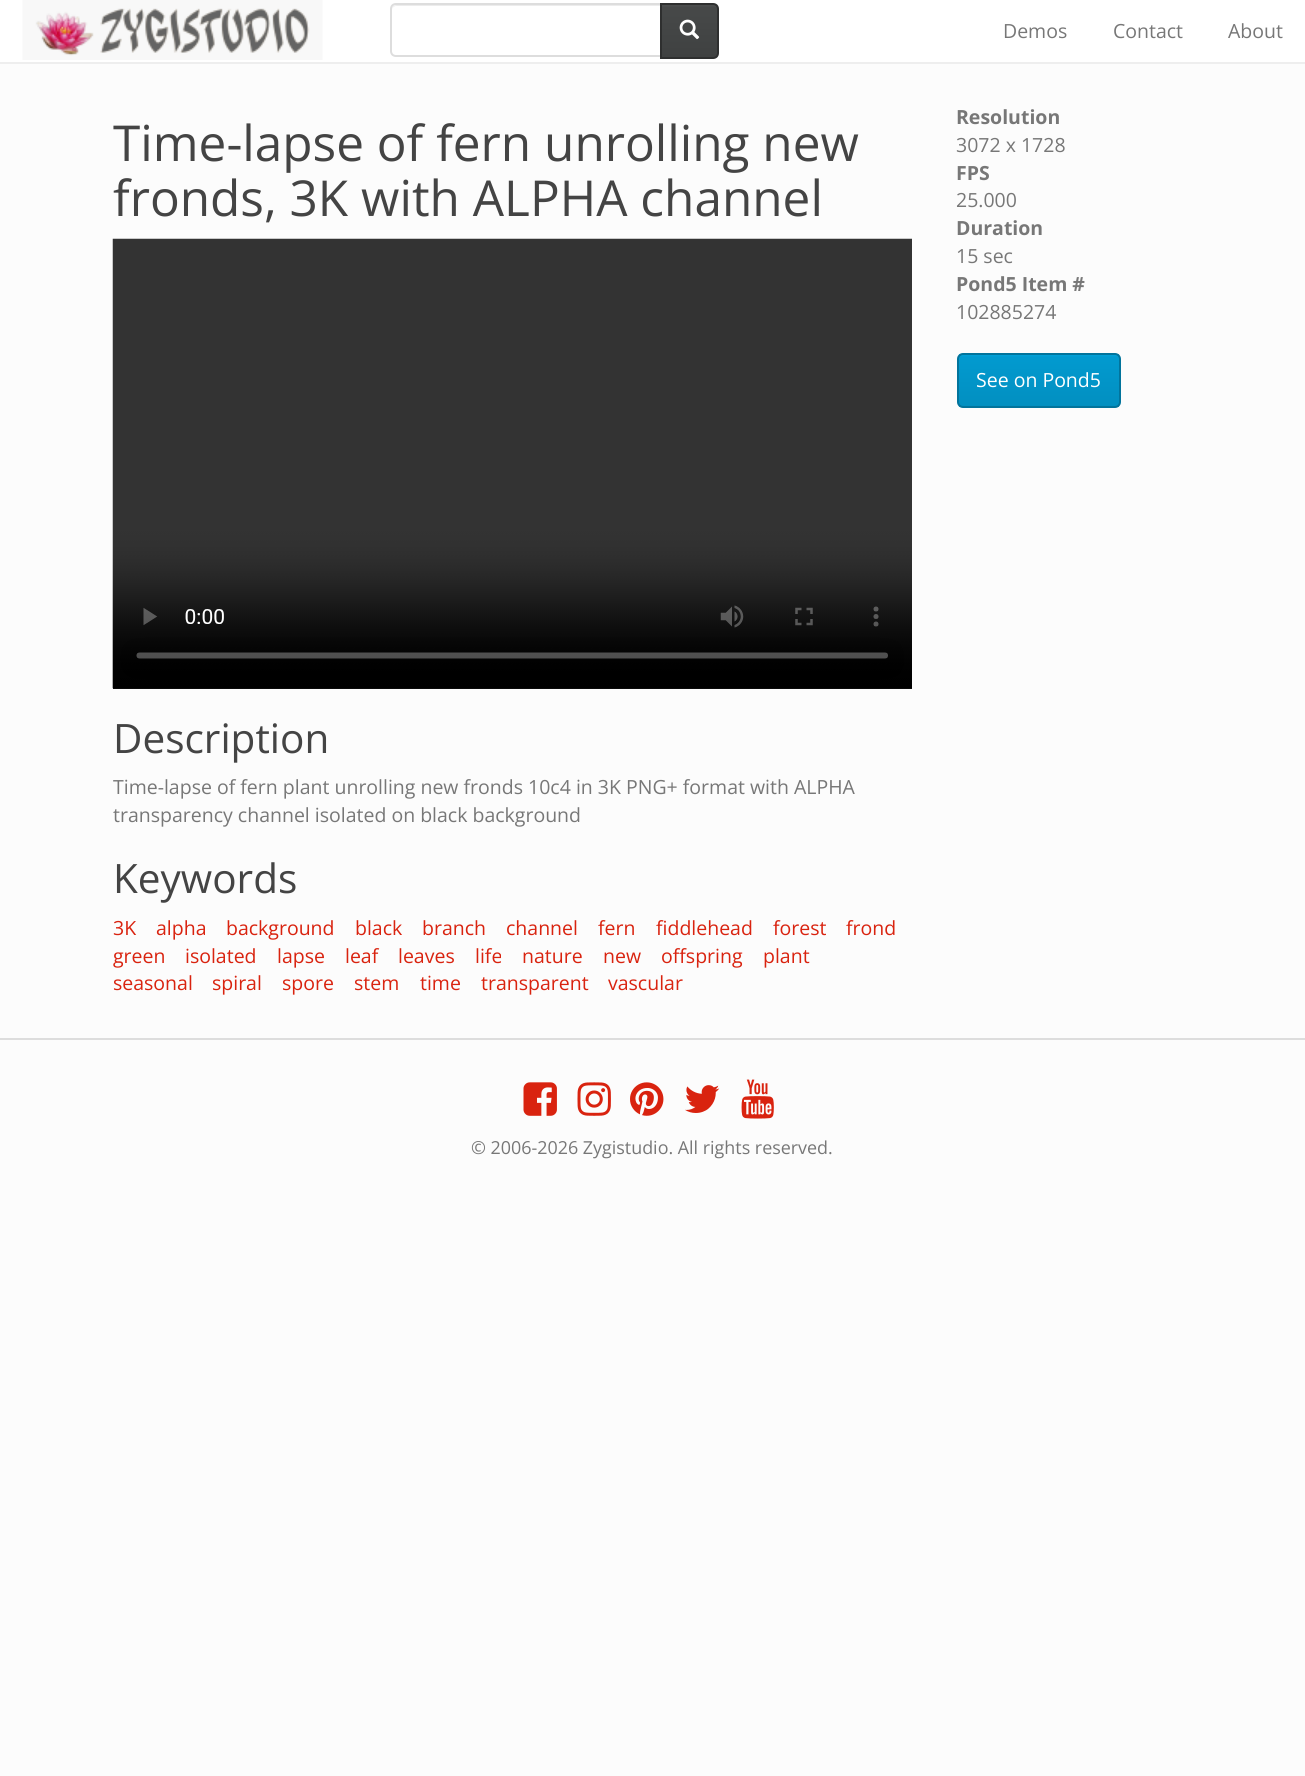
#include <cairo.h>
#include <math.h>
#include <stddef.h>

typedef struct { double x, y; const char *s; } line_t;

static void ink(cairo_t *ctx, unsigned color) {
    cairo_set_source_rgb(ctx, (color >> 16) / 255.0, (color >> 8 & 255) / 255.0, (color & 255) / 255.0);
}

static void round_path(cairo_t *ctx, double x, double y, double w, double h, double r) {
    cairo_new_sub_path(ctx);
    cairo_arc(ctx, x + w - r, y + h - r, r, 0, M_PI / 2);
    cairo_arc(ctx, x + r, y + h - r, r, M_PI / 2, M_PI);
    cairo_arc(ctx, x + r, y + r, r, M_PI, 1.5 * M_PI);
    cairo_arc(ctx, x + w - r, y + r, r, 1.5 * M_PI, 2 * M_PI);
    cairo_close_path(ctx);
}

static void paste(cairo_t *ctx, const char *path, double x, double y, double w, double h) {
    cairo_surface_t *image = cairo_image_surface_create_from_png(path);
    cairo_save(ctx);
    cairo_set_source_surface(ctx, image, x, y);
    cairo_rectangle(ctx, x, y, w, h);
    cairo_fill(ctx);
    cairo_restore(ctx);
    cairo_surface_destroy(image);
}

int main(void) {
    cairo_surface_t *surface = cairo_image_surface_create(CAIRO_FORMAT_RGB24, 1305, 1776);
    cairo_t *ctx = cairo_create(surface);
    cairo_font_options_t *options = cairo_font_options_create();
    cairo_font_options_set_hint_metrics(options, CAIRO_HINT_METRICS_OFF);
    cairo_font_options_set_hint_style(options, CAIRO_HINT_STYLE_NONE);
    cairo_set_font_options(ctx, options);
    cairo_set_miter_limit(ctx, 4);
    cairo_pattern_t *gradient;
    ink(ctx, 0xFCFCFC);
    cairo_paint(ctx);
    ink(ctx, 0xFFFFFF);
    cairo_rectangle(ctx, 0, 0, 1305, 62);
    cairo_fill(ctx);
    ink(ctx, 0xEEEEEE);
    cairo_rectangle(ctx, 0, 62, 1305, 2);
    cairo_fill(ctx);
    paste(ctx, "media/1.png", 22, 0, 301, 60);
    ink(ctx, 0xECECEC);
    cairo_new_path(ctx);
    cairo_move_to(ctx, 396, 6);
    cairo_line_to(ctx, 660, 6);
    cairo_line_to(ctx, 660, 5);
    cairo_line_to(ctx, 397, 5);
    cairo_curve_to(ctx, 394, 5, 392, 7, 392, 10);
    cairo_curve_to(ctx, 392, 8, 394, 6, 396, 6);
    cairo_close_path(ctx);
    cairo_fill(ctx);
    cairo_new_path(ctx);
    cairo_move_to(ctx, 396, 4);
    cairo_line_to(ctx, 661, 4);
    cairo_line_to(ctx, 661, 56);
    cairo_line_to(ctx, 396, 56);
    cairo_curve_to(ctx, 393, 56, 391, 54, 391, 51);
    cairo_line_to(ctx, 391, 9);
    cairo_curve_to(ctx, 391, 6, 393, 4, 396, 4);
    cairo_close_path(ctx);
    ink(ctx, 0xDDDDDD);
    cairo_stroke(ctx);
    gradient = cairo_pattern_create_linear(689, 4.5, 689, 57);
    cairo_pattern_add_color_stop_rgba(gradient, 0, 0.31, 0.318, 0.318, 1);
    cairo_pattern_add_color_stop_rgba(gradient, 0.06, 0.278, 0.286, 0.286, 1);
    cairo_pattern_add_color_stop_rgba(gradient, 1, 0.247, 0.255, 0.255, 1);
    cairo_set_source(ctx, gradient);
    cairo_pattern_destroy(gradient);
    cairo_rectangle(ctx, 662, 5, 55, 52);
    cairo_fill(ctx);
    cairo_new_path(ctx);
    cairo_move_to(ctx, 661, 4);
    cairo_line_to(ctx, 713, 4);
    cairo_curve_to(ctx, 716, 4, 718, 6, 718, 9);
    cairo_line_to(ctx, 718, 53);
    cairo_curve_to(ctx, 718, 56, 716, 58, 713, 58);
    cairo_line_to(ctx, 661, 58);
    cairo_close_path(ctx);
    ink(ctx, 0x2E2F2F);
    cairo_stroke(ctx);
    paste(ctx, "media/2.png", 679, 19, 21, 21);
    cairo_select_font_face(ctx, "Open Sans", CAIRO_FONT_SLANT_NORMAL, CAIRO_FONT_WEIGHT_NORMAL);
    cairo_set_font_size(ctx, 19.5);
    ink(ctx, 0x777777);
    {
        static const line_t items[] = {
            {1003, 38, "Demos"},
            {1113, 38, "Contact"},
            {1228, 38, "About"},
        };
        for (size_t i = 0; i < sizeof items / sizeof *items; i++) {
            cairo_move_to(ctx, items[i].x, items[i].y);
            cairo_show_text(ctx, items[i].s);
        }
    }
    cairo_set_font_size(ctx, 49.5);
    ink(ctx, 0x444444);
    cairo_move_to(ctx, 113, 161);
    cairo_show_text(ctx, "Time-lapse of fern unrolling new");
    cairo_move_to(ctx, 113, 216);
    cairo_show_text(ctx, "fronds, 3K with ALPHA channel");
    ink(ctx, 0x000000);
    cairo_rectangle(ctx, 113, 688, 799, 1);
    cairo_fill(ctx);
    paste(ctx, "media/3.png", 112, 238, 800, 451);
    cairo_set_font_size(ctx, 40.5);
    ink(ctx, 0x444444);
    cairo_move_to(ctx, 113, 753);
    cairo_show_text(ctx, "Description");
    cairo_set_font_size(ctx, 19.5);
    ink(ctx, 0x777777);
    cairo_move_to(ctx, 113, 794);
    cairo_show_text(ctx, "Time-lapse of fern plant unrolling new fronds 10c4 in 3K PNG+ format with ALPHA");
    cairo_move_to(ctx, 113, 822);
    cairo_show_text(ctx, "transparency channel isolated on black background");
    cairo_set_font_size(ctx, 40.5);
    ink(ctx, 0x444444);
    cairo_move_to(ctx, 113, 893);
    cairo_show_text(ctx, "Keywords");
    cairo_set_font_size(ctx, 19.5);
    ink(ctx, 0xD9230F);
    {
        static const line_t items[] = {
            {113, 935, "3K"},
            {156, 935, "alpha"},
            {226, 935, "background"},
            {355, 935, "black"},
            {422, 935, "branch"},
            {506, 935, "channel"},
            {598, 935, "fern"},
            {656, 935, "fiddlehead"},
            {773, 935, "forest"},
            {846, 935, "frond"},
            {113, 963, "green"},
            {185, 963, "isolated"},
            {277, 963, "lapse"},
            {345, 963, "leaf"},
            {398, 963, "leaves"},
            {475, 963, "life"},
            {522, 963, "nature"},
            {603, 963, "new"},
            {661, 963, "offspring"},
            {763, 963, "plant"},
            {113, 990, "seasonal"},
            {212, 990, "spiral"},
            {282, 990, "spore"},
            {354, 990, "stem"},
            {420, 990, "time"},
            {481, 990, "transparent"},
            {608, 990, "vascular"},
        };
        for (size_t i = 0; i < sizeof items / sizeof *items; i++) {
            cairo_move_to(ctx, items[i].x, items[i].y);
            cairo_show_text(ctx, items[i].s);
        }
    }
    cairo_select_font_face(ctx, "Open Sans", CAIRO_FONT_SLANT_NORMAL, CAIRO_FONT_WEIGHT_BOLD);
    ink(ctx, 0x777777);
    cairo_move_to(ctx, 956, 124);
    cairo_show_text(ctx, "Resolution");
    cairo_select_font_face(ctx, "Open Sans", CAIRO_FONT_SLANT_NORMAL, CAIRO_FONT_WEIGHT_NORMAL);
    cairo_move_to(ctx, 956, 152);
    cairo_show_text(ctx, "3072 x 1728");
    cairo_select_font_face(ctx, "Open Sans", CAIRO_FONT_SLANT_NORMAL, CAIRO_FONT_WEIGHT_BOLD);
    cairo_move_to(ctx, 956, 180);
    cairo_show_text(ctx, "FPS");
    cairo_select_font_face(ctx, "Open Sans", CAIRO_FONT_SLANT_NORMAL, CAIRO_FONT_WEIGHT_NORMAL);
    cairo_move_to(ctx, 956, 207);
    cairo_show_text(ctx, "25.000");
    cairo_select_font_face(ctx, "Open Sans", CAIRO_FONT_SLANT_NORMAL, CAIRO_FONT_WEIGHT_BOLD);
    cairo_move_to(ctx, 956, 235);
    cairo_show_text(ctx, "Duration");
    cairo_select_font_face(ctx, "Open Sans", CAIRO_FONT_SLANT_NORMAL, CAIRO_FONT_WEIGHT_NORMAL);
    cairo_move_to(ctx, 956, 263);
    cairo_show_text(ctx, "15 sec");
    cairo_select_font_face(ctx, "Open Sans", CAIRO_FONT_SLANT_NORMAL, CAIRO_FONT_WEIGHT_BOLD);
    cairo_move_to(ctx, 956, 291);
    cairo_show_text(ctx, "Pond5 Item #");
    cairo_select_font_face(ctx, "Open Sans", CAIRO_FONT_SLANT_NORMAL, CAIRO_FONT_WEIGHT_NORMAL);
    cairo_move_to(ctx, 956, 319);
    cairo_show_text(ctx, "102885274");
    cairo_save(ctx);
    round_path(ctx, 957, 353, 164, 55, 6);
    cairo_clip(ctx);
    gradient = cairo_pattern_create_linear(1039, 354, 1039, 407);
    cairo_pattern_add_color_stop_rgba(gradient, 0, 0.008, 0.647, 0.871, 1);
    cairo_pattern_add_color_stop_rgba(gradient, 0.06, 0.008, 0.604, 0.812, 1);
    cairo_pattern_add_color_stop_rgba(gradient, 1, 0.008, 0.561, 0.753, 1);
    cairo_set_source(ctx, gradient);
    cairo_pattern_destroy(gradient);
    cairo_rectangle(ctx, 959, 354, 160, 53);
    cairo_fill(ctx);
    cairo_restore(ctx);
    round_path(ctx, 958, 354, 162, 53, 5);
    ink(ctx, 0x02749C);
    cairo_stroke(ctx);
    ink(ctx, 0xFFFFFF);
    cairo_move_to(ctx, 976, 387);
    cairo_show_text(ctx, "See on Pond5");
    ink(ctx, 0xDDDDDD);
    cairo_rectangle(ctx, 0, 1038, 1305, 2);
    cairo_fill(ctx);
    paste(ctx, "media/4.png", 523, 1082, 34, 34);
    paste(ctx, "media/5.png", 577, 1082, 34, 34);
    paste(ctx, "media/6.png", 630, 1082, 34, 34);
    paste(ctx, "media/7.png", 685, 1085, 35, 28);
    paste(ctx, "media/8.png", 741, 1079, 33, 40);
    cairo_set_font_size(ctx, 17.9);
    ink(ctx, 0x777777);
    cairo_move_to(ctx, 471, 1154);
    cairo_show_text(ctx, "© 2006-2026 Zygistudio. All rights reserved.");
    cairo_surface_write_to_png(surface, "image.png");
    cairo_font_options_destroy(options);
    cairo_destroy(ctx);
    cairo_surface_destroy(surface);
    return 0;
}
